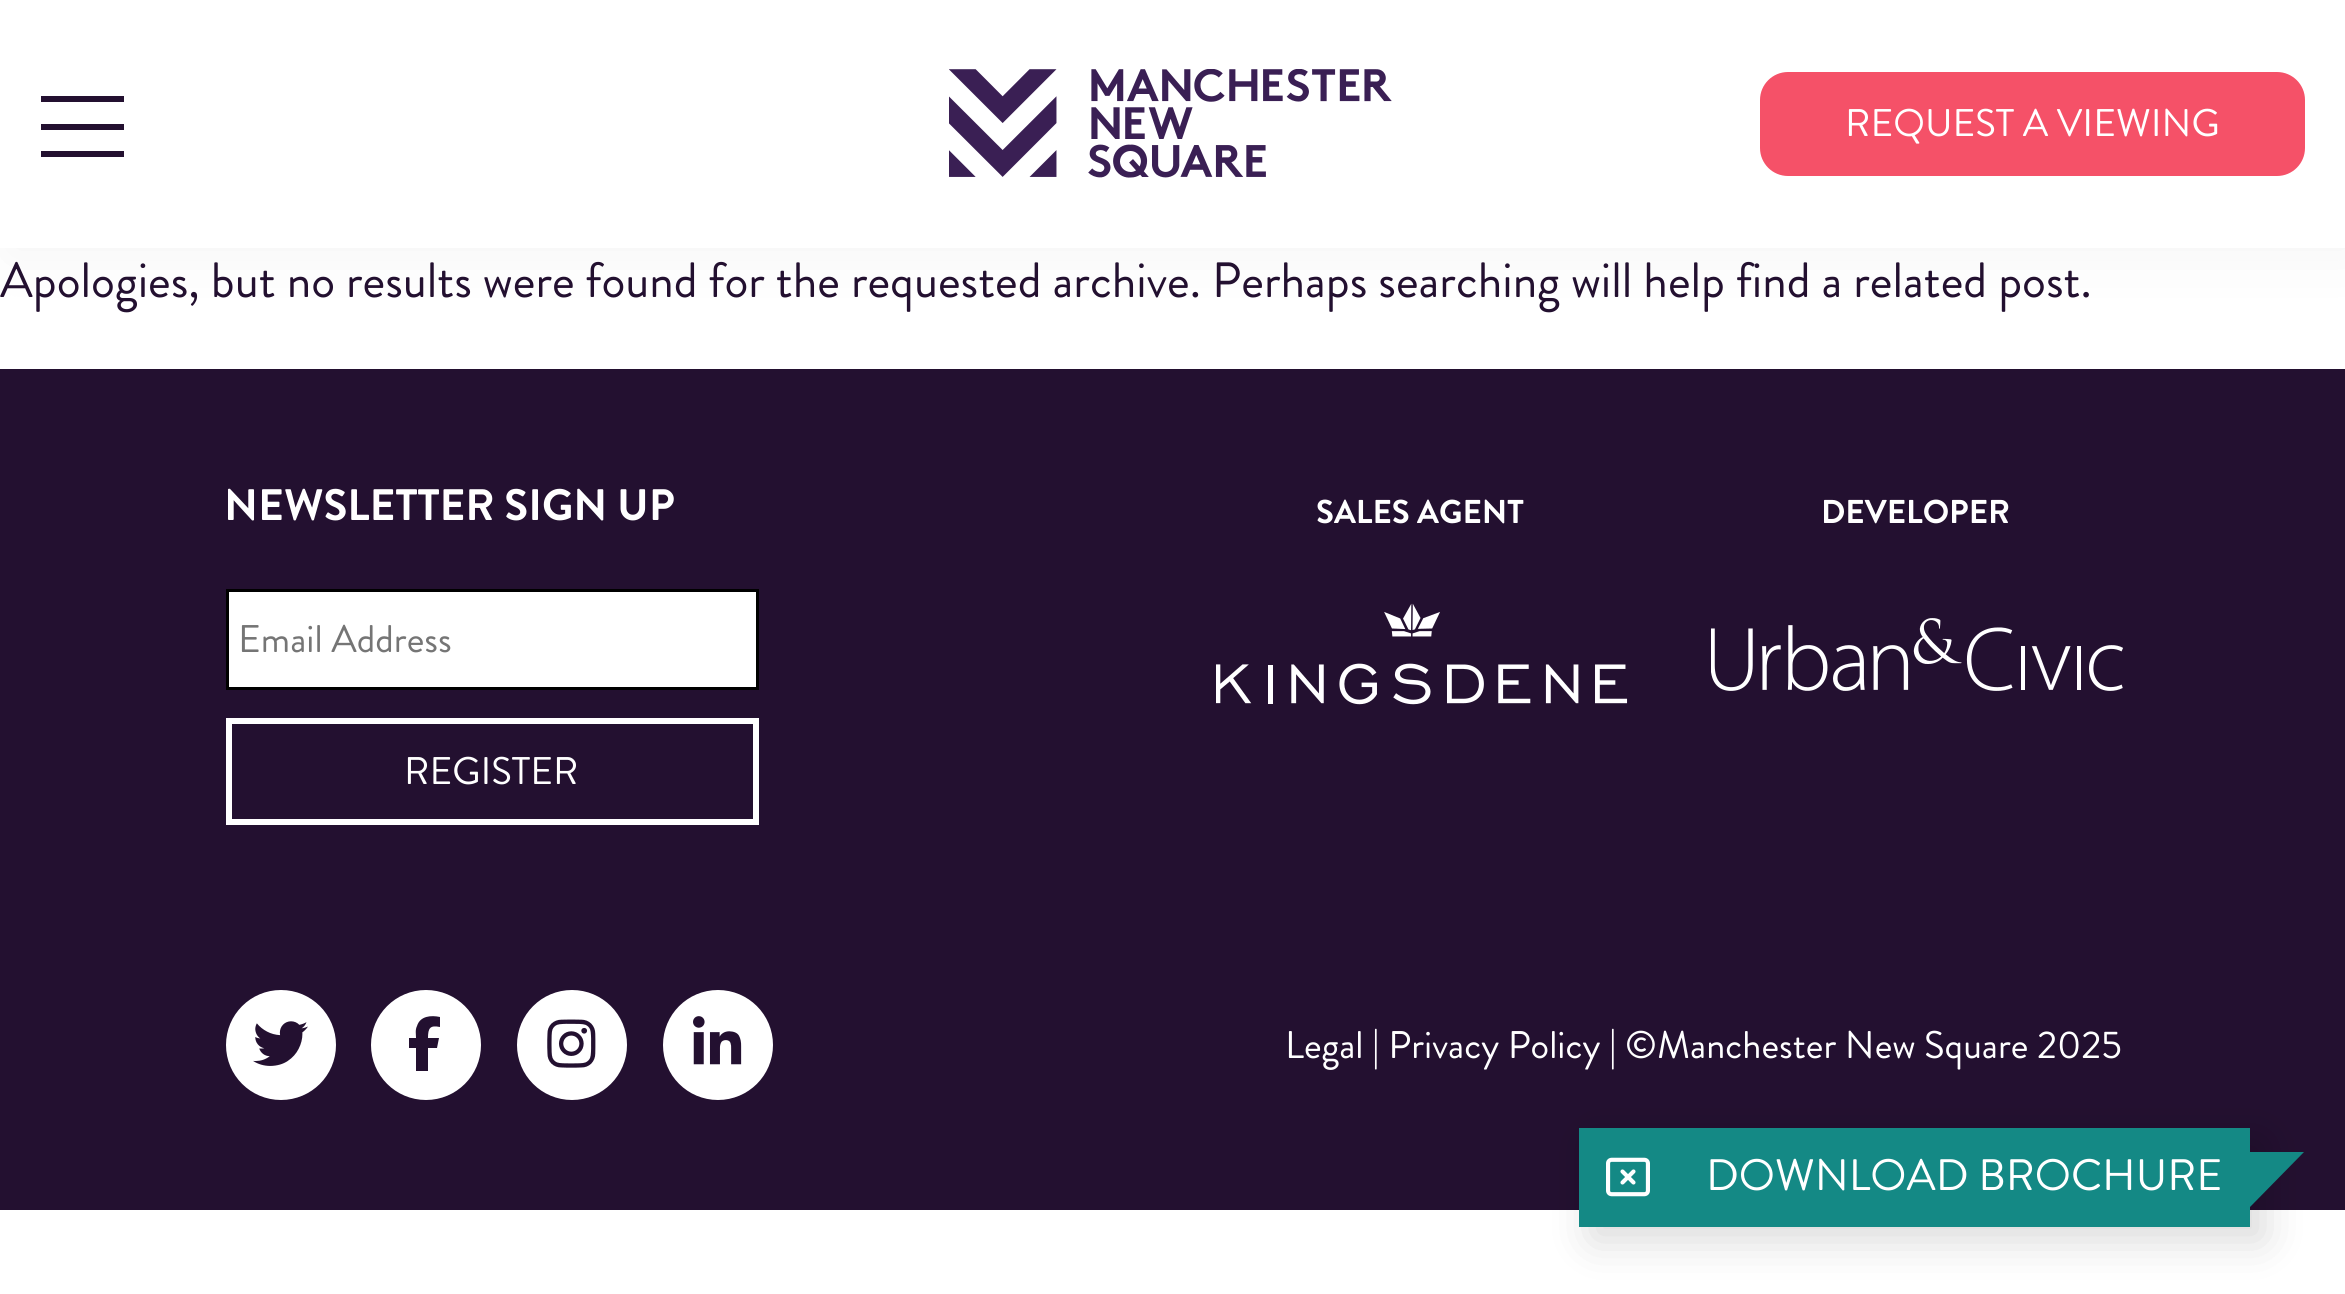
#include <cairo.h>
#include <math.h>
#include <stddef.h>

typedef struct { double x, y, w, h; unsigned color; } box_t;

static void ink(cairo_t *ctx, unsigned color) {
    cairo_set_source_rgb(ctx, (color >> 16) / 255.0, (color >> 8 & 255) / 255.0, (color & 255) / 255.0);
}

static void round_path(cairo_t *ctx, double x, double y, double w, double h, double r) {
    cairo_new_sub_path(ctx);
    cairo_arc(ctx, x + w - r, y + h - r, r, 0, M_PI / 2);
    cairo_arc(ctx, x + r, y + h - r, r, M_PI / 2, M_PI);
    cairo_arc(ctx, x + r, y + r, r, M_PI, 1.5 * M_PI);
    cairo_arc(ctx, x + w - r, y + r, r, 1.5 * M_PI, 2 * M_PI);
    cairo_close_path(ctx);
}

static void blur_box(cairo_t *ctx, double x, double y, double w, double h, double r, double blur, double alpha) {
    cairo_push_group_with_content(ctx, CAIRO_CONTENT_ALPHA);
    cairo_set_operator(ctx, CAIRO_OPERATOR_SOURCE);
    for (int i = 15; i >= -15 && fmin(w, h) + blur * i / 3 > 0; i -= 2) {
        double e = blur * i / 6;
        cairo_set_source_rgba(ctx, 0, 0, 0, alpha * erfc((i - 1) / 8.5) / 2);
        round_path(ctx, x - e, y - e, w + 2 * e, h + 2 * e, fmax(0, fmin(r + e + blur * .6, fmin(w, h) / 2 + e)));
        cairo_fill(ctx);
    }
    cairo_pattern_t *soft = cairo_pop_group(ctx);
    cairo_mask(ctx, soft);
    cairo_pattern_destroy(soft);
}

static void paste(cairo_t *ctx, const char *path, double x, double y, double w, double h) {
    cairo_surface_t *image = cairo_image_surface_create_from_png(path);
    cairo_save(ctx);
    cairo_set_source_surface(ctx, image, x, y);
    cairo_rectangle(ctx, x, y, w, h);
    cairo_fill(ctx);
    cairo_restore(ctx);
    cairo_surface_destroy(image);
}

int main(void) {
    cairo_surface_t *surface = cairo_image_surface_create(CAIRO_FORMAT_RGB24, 2345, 1294);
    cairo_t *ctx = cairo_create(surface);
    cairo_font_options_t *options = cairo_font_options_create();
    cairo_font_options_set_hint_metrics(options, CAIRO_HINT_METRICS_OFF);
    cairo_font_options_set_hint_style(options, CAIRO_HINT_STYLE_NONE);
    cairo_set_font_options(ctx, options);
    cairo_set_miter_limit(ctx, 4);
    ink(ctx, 0xFFFFFF);
    cairo_paint(ctx);
    ink(ctx, 0x969696);
    blur_box(ctx, 8, 8, 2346, 248, 0, 27.5, 0.1);
    {
        static const box_t items[] = {
            {0, 0, 2345, 248, 0xFFFFFF},
            {41, 96, 83, 6, 0x231030},
            {41, 124, 83, 6, 0x231030},
            {41, 151, 83, 6, 0x231030},
        };
        for (size_t i = 0; i < sizeof items / sizeof *items; i++) {
            ink(ctx, items[i].color);
            cairo_rectangle(ctx, items[i].x, items[i].y, items[i].w, items[i].h);
            cairo_fill(ctx);
        }
    }
    paste(ctx, "media/1.png", 949, 69, 443, 109);
    ink(ctx, 0xF55168);
    round_path(ctx, 1761.5, 73.5, 542, 101, 26.5);
    cairo_fill_preserve(ctx);
    cairo_set_line_width(ctx, 3);
    cairo_stroke(ctx);
    cairo_select_font_face(ctx, "Brandon Grotesque", CAIRO_FONT_SLANT_NORMAL, CAIRO_FONT_WEIGHT_NORMAL);
    cairo_set_font_size(ctx, 38.5);
    ink(ctx, 0xFFFFFF);
    cairo_move_to(ctx, 1845, 136);
    cairo_show_text(ctx, "REQUEST A VIEWING");
    cairo_set_font_size(ctx, 49.5);
    ink(ctx, 0x231030);
    cairo_move_to(ctx, 0, 297);
    cairo_show_text(ctx, "Apologies, but no results were found for the requested archive. Perhaps searching will help find a related post.");
    cairo_rectangle(ctx, 0, 369, 2345, 841);
    cairo_fill(ctx);
    cairo_select_font_face(ctx, "Brandon Grotesque", CAIRO_FONT_SLANT_NORMAL, CAIRO_FONT_WEIGHT_BOLD);
    cairo_set_font_size(ctx, 44);
    ink(ctx, 0xFFFFFF);
    cairo_move_to(ctx, 224, 520);
    cairo_show_text(ctx, "NEWSLETTER SIGN UP");
    cairo_rectangle(ctx, 227.5, 590.5, 530, 98);
    cairo_fill_preserve(ctx);
    ink(ctx, 0x000000);
    cairo_stroke(ctx);
    cairo_select_font_face(ctx, "Brandon Grotesque", CAIRO_FONT_SLANT_NORMAL, CAIRO_FONT_WEIGHT_NORMAL);
    cairo_set_font_size(ctx, 38.5);
    ink(ctx, 0x757575);
    cairo_move_to(ctx, 238, 652);
    cairo_show_text(ctx, "Email Address");
    cairo_rectangle(ctx, 229, 721, 527, 101);
    ink(ctx, 0xFFFFFF);
    cairo_set_line_width(ctx, 6);
    cairo_stroke(ctx);
    cairo_move_to(ctx, 404, 784);
    cairo_show_text(ctx, "REGISTER");
    cairo_select_font_face(ctx, "Brandon Grotesque", CAIRO_FONT_SLANT_NORMAL, CAIRO_FONT_WEIGHT_BOLD);
    cairo_set_font_size(ctx, 33);
    cairo_move_to(ctx, 1316, 523);
    cairo_show_text(ctx, "SALES AGENT");
    paste(ctx, "media/2.png", 1216, 603, 412, 102);
    cairo_move_to(ctx, 1821, 523);
    cairo_show_text(ctx, "DEVELOPER");
    paste(ctx, "media/3.png", 1711, 618, 412, 73);
    cairo_arc(ctx, 281, 1045, 52, 0, 2 * M_PI);
    cairo_fill_preserve(ctx);
    cairo_stroke(ctx);
    paste(ctx, "media/4.png", 253, 1021, 55, 45);
    cairo_arc(ctx, 426, 1045, 52, 0, 2 * M_PI);
    cairo_fill_preserve(ctx);
    cairo_stroke(ctx);
    ink(ctx, 0x231030);
    cairo_new_path(ctx);
    cairo_move_to(ctx, 416, 1048);
    cairo_line_to(ctx, 416, 1071);
    cairo_line_to(ctx, 416, 1048);
    cairo_line_to(ctx, 416, 1071);
    cairo_line_to(ctx, 428, 1071);
    cairo_line_to(ctx, 428, 1048);
    cairo_line_to(ctx, 437, 1048);
    cairo_line_to(ctx, 439, 1038);
    cairo_line_to(ctx, 428, 1038);
    cairo_curve_to(ctx, 428, 1028, 430, 1025, 440, 1027);
    cairo_line_to(ctx, 440, 1017);
    cairo_curve_to(ctx, 431, 1015, 420, 1016, 417, 1026);
    cairo_curve_to(ctx, 415, 1030, 416, 1034, 416, 1038);
    cairo_line_to(ctx, 409, 1038);
    cairo_line_to(ctx, 409, 1048);
    cairo_close_path(ctx);
    cairo_fill(ctx);
    ink(ctx, 0xFFFFFF);
    cairo_arc(ctx, 572, 1045, 52, 0, 2 * M_PI);
    cairo_fill_preserve(ctx);
    cairo_stroke(ctx);
    paste(ctx, "media/5.png", 547, 1019, 49, 49);
    cairo_arc(ctx, 718, 1045, 52, 0, 2 * M_PI);
    cairo_fill_preserve(ctx);
    cairo_stroke(ctx);
    paste(ctx, "media/6.png", 693, 1016, 49, 49);
    cairo_select_font_face(ctx, "Brandon Grotesque", CAIRO_FONT_SLANT_NORMAL, CAIRO_FONT_WEIGHT_NORMAL);
    cairo_set_font_size(ctx, 38.5);
    cairo_move_to(ctx, 1285, 1058);
    cairo_show_text(ctx, "Legal | Privacy Policy | ©Manchester New Square 2025");
    ink(ctx, 0x000000);
    blur_box(ctx, 1592, 1141, 671, 99, 0, 22, 0.15);
    ink(ctx, 0x148985);
    cairo_rectangle(ctx, 1579, 1128, 671, 99);
    cairo_fill(ctx);
    paste(ctx, "media/7.png", 1606, 1157, 44, 40);
    cairo_set_font_size(ctx, 44);
    ink(ctx, 0xFFFFFF);
    cairo_move_to(ctx, 1706, 1190);
    cairo_show_text(ctx, "DOWNLOAD BROCHURE");
    ink(ctx, 0x148985);
    cairo_new_path(ctx);
    cairo_move_to(ctx, 2250, 1152);
    cairo_line_to(ctx, 2304, 1152);
    cairo_line_to(ctx, 2250, 1207);
    cairo_close_path(ctx);
    cairo_fill(ctx);
    cairo_surface_write_to_png(surface, "image.png");
    cairo_font_options_destroy(options);
    cairo_destroy(ctx);
    cairo_surface_destroy(surface);
    return 0;
}
